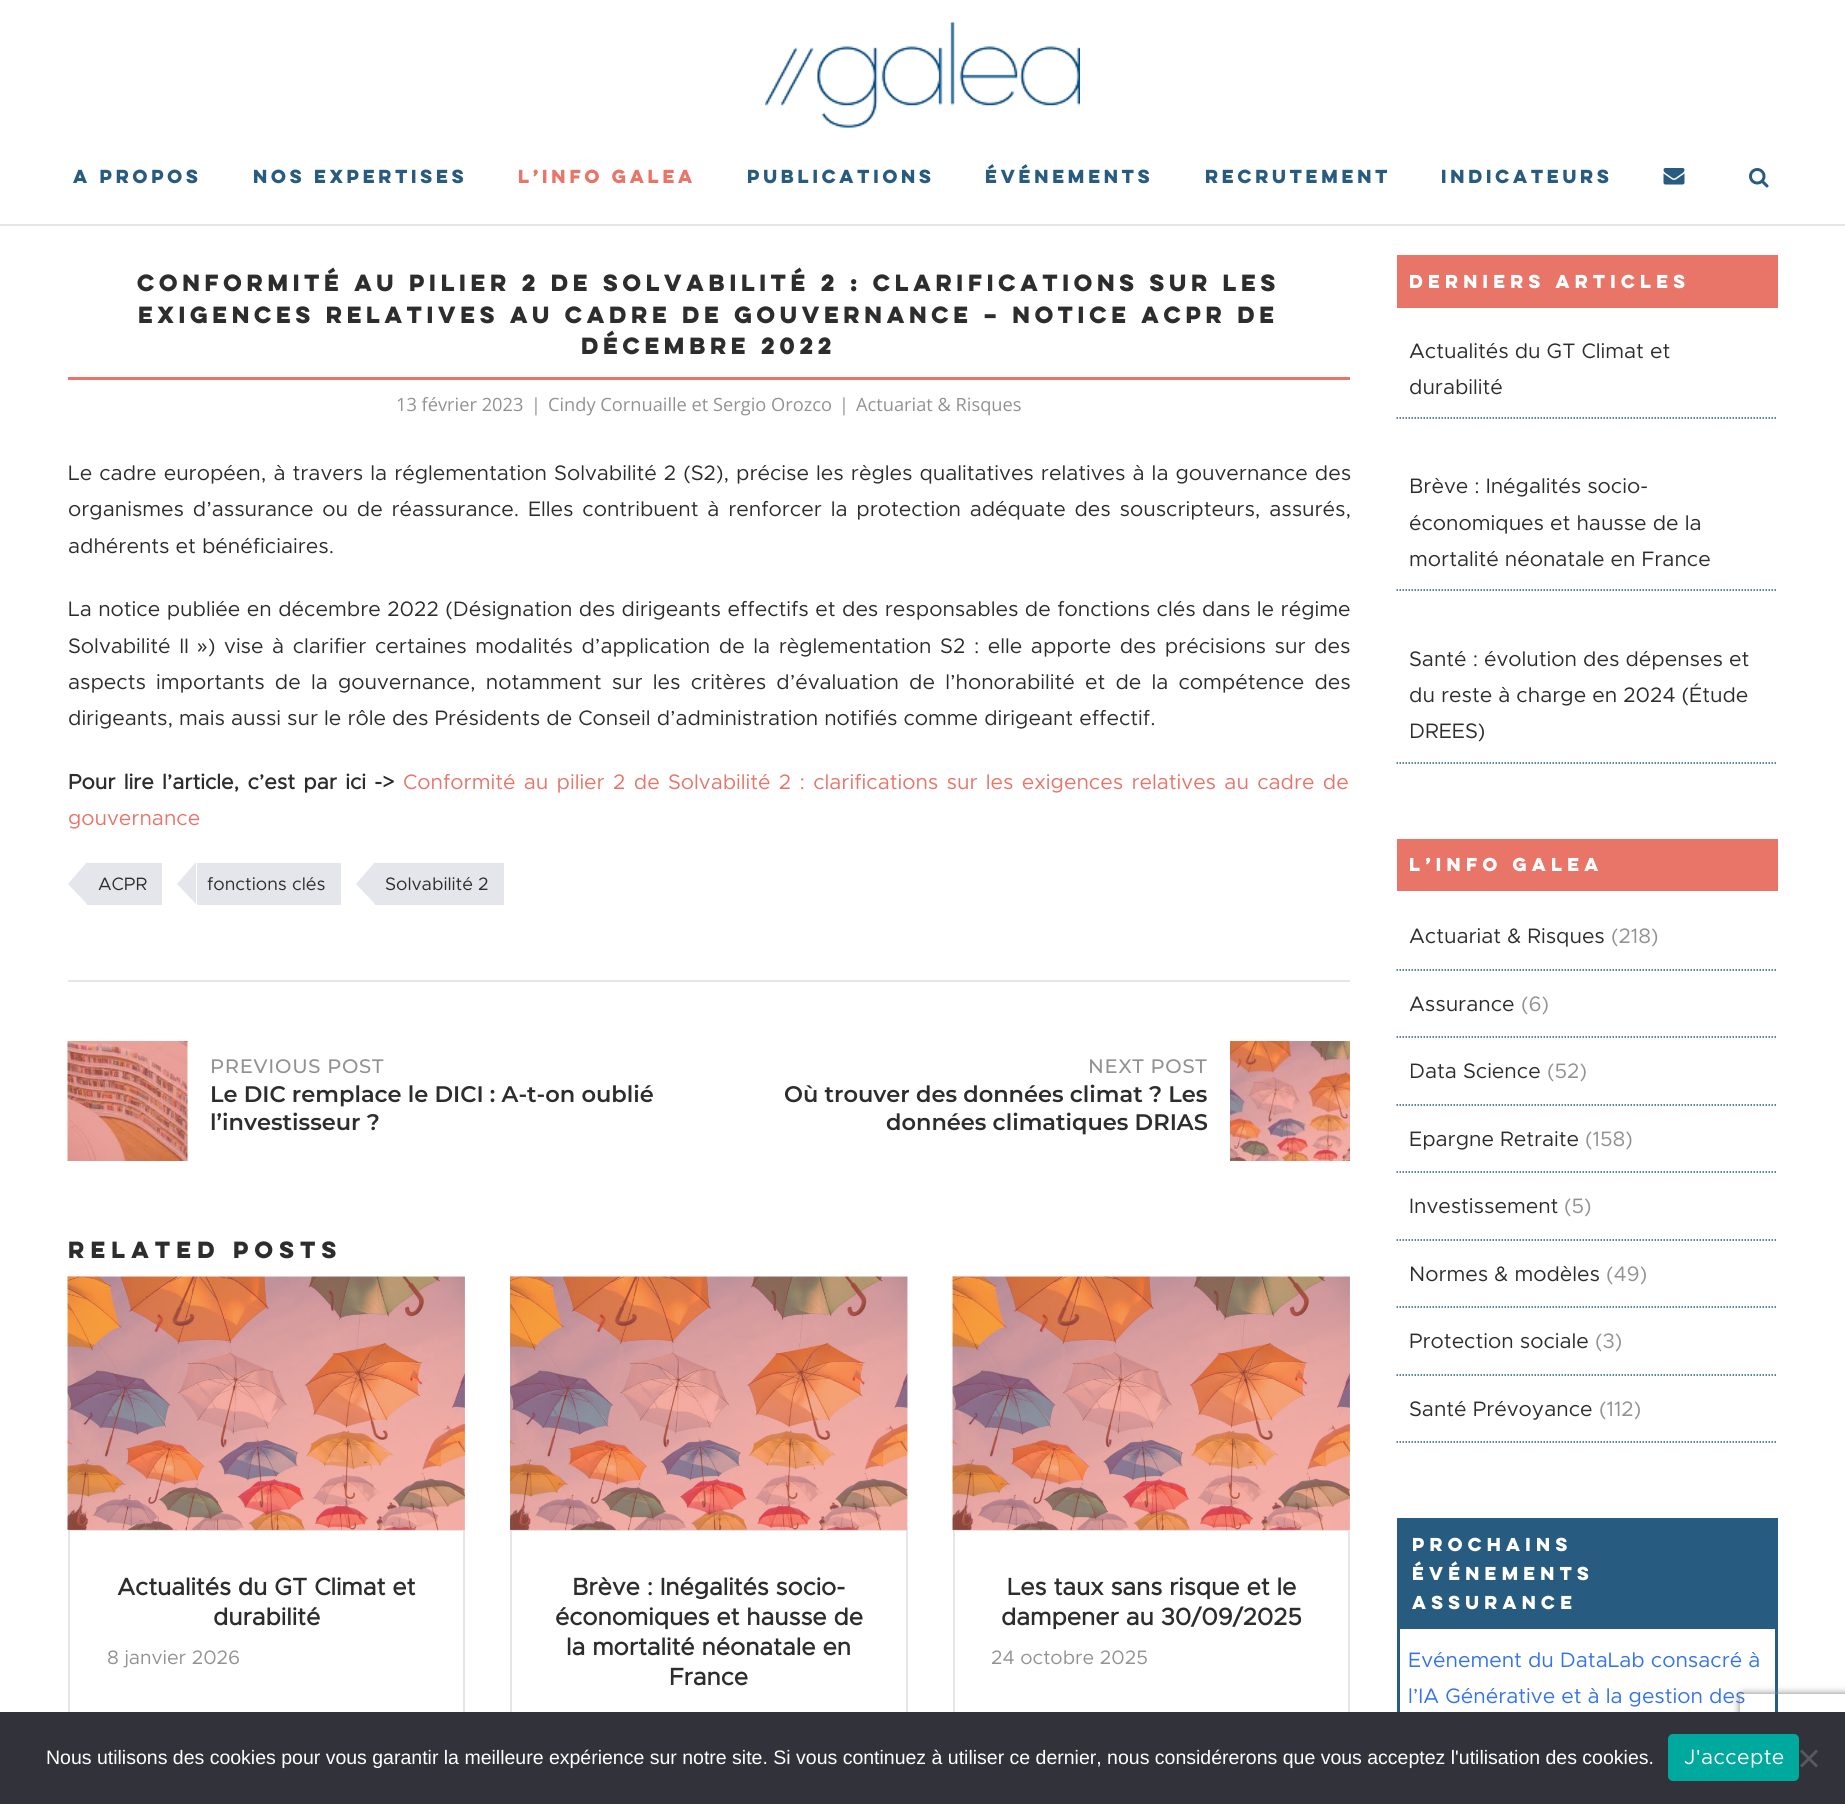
#include <cairo.h>
#include <math.h>
#include <stddef.h>

typedef struct { double x, y; const char *s; } line_t;
typedef struct { double x, y, w, h; unsigned color; } box_t;

static void ink(cairo_t *ctx, unsigned color) {
    cairo_set_source_rgb(ctx, (color >> 16) / 255.0, (color >> 8 & 255) / 255.0, (color & 255) / 255.0);
}

static void write_spaced(cairo_t *ctx, double x, double y, const char *s, double letter, double word) {
    cairo_move_to(ctx, x, y);
    while (*s) {
        char ch[5] = {0};
        int n = 0;
        do ch[n++] = *s++; while ((*s & 0xC0) == 0x80);
        cairo_show_text(ctx, ch);
        cairo_rel_move_to(ctx, letter + word * (*ch == ' '), 0);
    }
}

static void round_path(cairo_t *ctx, double x, double y, double w, double h, double r) {
    cairo_new_sub_path(ctx);
    cairo_arc(ctx, x + w - r, y + h - r, r, 0, M_PI / 2);
    cairo_arc(ctx, x + r, y + h - r, r, M_PI / 2, M_PI);
    cairo_arc(ctx, x + r, y + r, r, M_PI, 1.5 * M_PI);
    cairo_arc(ctx, x + w - r, y + r, r, 1.5 * M_PI, 2 * M_PI);
    cairo_close_path(ctx);
}

static void blur_box(cairo_t *ctx, double x, double y, double w, double h, double r, double blur, double alpha) {
    cairo_push_group_with_content(ctx, CAIRO_CONTENT_ALPHA);
    cairo_set_operator(ctx, CAIRO_OPERATOR_SOURCE);
    for (int i = 15; i >= -15 && fmin(w, h) + blur * i / 3 > 0; i -= 2) {
        double e = blur * i / 6;
        cairo_set_source_rgba(ctx, 0, 0, 0, alpha * erfc((i - 1) / 8.5) / 2);
        round_path(ctx, x - e, y - e, w + 2 * e, h + 2 * e, fmax(0, fmin(r + e + blur * .6, fmin(w, h) / 2 + e)));
        cairo_fill(ctx);
    }
    cairo_pattern_t *soft = cairo_pop_group(ctx);
    cairo_mask(ctx, soft);
    cairo_pattern_destroy(soft);
}

static void paste(cairo_t *ctx, const char *path, double x, double y, double w, double h) {
    cairo_surface_t *image = cairo_image_surface_create_from_png(path);
    cairo_save(ctx);
    cairo_set_source_surface(ctx, image, x, y);
    cairo_rectangle(ctx, x, y, w, h);
    cairo_fill(ctx);
    cairo_restore(ctx);
    cairo_surface_destroy(image);
}

int main(void) {
    cairo_surface_t *surface = cairo_image_surface_create(CAIRO_FORMAT_RGB24, 1845, 1804);
    cairo_t *ctx = cairo_create(surface);
    cairo_font_options_t *options = cairo_font_options_create();
    cairo_font_options_set_hint_metrics(options, CAIRO_HINT_METRICS_OFF);
    cairo_font_options_set_hint_style(options, CAIRO_HINT_STYLE_NONE);
    cairo_set_font_options(ctx, options);
    cairo_set_miter_limit(ctx, 4);
    ink(ctx, 0xFFFFFF);
    cairo_paint(ctx);
    ink(ctx, 0xE6E6E6);
    cairo_rectangle(ctx, 0, 224, 1845, 2);
    cairo_fill(ctx);
    paste(ctx, "media/1.png", 765, 22, 315, 106);
    cairo_select_font_face(ctx, "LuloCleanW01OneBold", CAIRO_FONT_SLANT_NORMAL, CAIRO_FONT_WEIGHT_BOLD);
    cairo_set_font_size(ctx, 16.9);
    ink(ctx, 0x285B80);
    cairo_move_to(ctx, 73, 183);
    cairo_show_text(ctx, "A PROPOS");
    cairo_move_to(ctx, 253, 183);
    cairo_show_text(ctx, "NOS EXPERTISES");
    ink(ctx, 0xE97569);
    cairo_move_to(ctx, 518, 183);
    cairo_show_text(ctx, "L’INFO GALEA");
    ink(ctx, 0x285B80);
    {
        static const line_t items[] = {
            {747, 183, "PUBLICATIONS"},
            {985, 183, "ÉVÉNEMENTS"},
            {1205, 183, "RECRUTEMENT"},
            {1441, 183, "INDICATEURS"},
        };
        for (size_t i = 0; i < sizeof items / sizeof *items; i++) {
            cairo_move_to(ctx, items[i].x, items[i].y);
            cairo_show_text(ctx, items[i].s);
        }
    }
    paste(ctx, "media/2.png", 1663, 168, 22, 17);
    paste(ctx, "media/3.png", 1749, 168, 20, 20);
    ink(ctx, 0xE97569);
    cairo_rectangle(ctx, 68, 377, 1282, 3);
    cairo_fill(ctx);
    cairo_set_font_size(ctx, 21);
    ink(ctx, 0x2D2D2D);
    {
        static const line_t items[] = {
            {137, 291, "CONFORMITÉ AU PILIER 2 DE SOLVABILITÉ 2 : CLARIFICATIONS SUR LES"},
            {138, 323, "EXIGENCES RELATIVES AU CADRE DE GOUVERNANCE – NOTICE ACPR DE"},
            {581, 354, "DÉCEMBRE 2022"},
        };
        for (size_t i = 0; i < sizeof items / sizeof *items; i++) {
            cairo_move_to(ctx, items[i].x, items[i].y);
            cairo_show_text(ctx, items[i].s);
        }
    }
    cairo_select_font_face(ctx, "Open Sans", CAIRO_FONT_SLANT_NORMAL, CAIRO_FONT_WEIGHT_NORMAL);
    cairo_set_font_size(ctx, 18.25);
    ink(ctx, 0x929292);
    cairo_move_to(ctx, 396, 411);
    cairo_show_text(ctx, "13 février 2023");
    cairo_set_font_size(ctx, 18);
    cairo_move_to(ctx, 531, 411);
    cairo_show_text(ctx, "|");
    cairo_set_font_size(ctx, 18.25);
    cairo_move_to(ctx, 548, 411);
    cairo_show_text(ctx, "Cindy Cornuaille et Sergio Orozco");
    cairo_set_font_size(ctx, 18);
    cairo_move_to(ctx, 839, 411);
    cairo_show_text(ctx, "|");
    cairo_set_font_size(ctx, 18.25);
    cairo_move_to(ctx, 856, 411);
    cairo_show_text(ctx, "Actuariat & Risques");
    cairo_select_font_face(ctx, "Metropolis", CAIRO_FONT_SLANT_NORMAL, CAIRO_FONT_WEIGHT_NORMAL);
    cairo_set_font_size(ctx, 21);
    ink(ctx, 0x2D2D2D);
    write_spaced(ctx, 68, 480, "Le cadre européen, à travers la réglementation Solvabilité 2 (S2), précise les règles qualitatives relatives à la gouvernance des", 0, 1);
    write_spaced(ctx, 68, 516, "organismes d’assurance ou de réassurance. Elles contribuent à renforcer la protection adéquate des souscripteurs, assurés,", 0, 2.75);
    cairo_move_to(ctx, 68, 553);
    cairo_show_text(ctx, "adhérents et bénéficiaires.");
    write_spaced(ctx, 68, 616, "La notice publiée en décembre 2022 (Désignation des dirigeants effectifs et des responsables de fonctions clés dans le régime", 0, 0.4);
    write_spaced(ctx, 68, 653, "Solvabilité II", 0, 2.5);
    cairo_select_font_face(ctx, "Open Sans", CAIRO_FONT_SLANT_NORMAL, CAIRO_FONT_WEIGHT_NORMAL);
    cairo_move_to(ctx, 197, 653);
    cairo_show_text(ctx, "»");
    cairo_select_font_face(ctx, "Metropolis", CAIRO_FONT_SLANT_NORMAL, CAIRO_FONT_WEIGHT_NORMAL);
    write_spaced(ctx, 208, 653, ") vise à clarifier certaines modalités d’application de la règlementation S2 : elle apporte des précisions sur des", 0, 2.5);
    write_spaced(ctx, 68, 689, "aspects importants de la gouvernance, notamment sur les critères d’évaluation de l’honorabilité et de la compétence des", 0, 4.1);
    cairo_move_to(ctx, 68, 725);
    cairo_show_text(ctx, "dirigeants, mais aussi sur le rôle des Présidents de Conseil d’administration notifiés comme dirigeant effectif.");
    cairo_select_font_face(ctx, "Metropolis", CAIRO_FONT_SLANT_NORMAL, CAIRO_FONT_WEIGHT_BOLD);
    write_spaced(ctx, 68, 789, "Pour lire l’article, c’est par ici ->", 0, 2.25);
    cairo_select_font_face(ctx, "Metropolis", CAIRO_FONT_SLANT_NORMAL, CAIRO_FONT_WEIGHT_NORMAL);
    ink(ctx, 0xE97569);
    write_spaced(ctx, 403, 789, "Conformité au pilier 2 de Solvabilité 2 : clarifications sur les exigences relatives au cadre de", 0, 2.25);
    cairo_move_to(ctx, 68, 825);
    cairo_show_text(ctx, "gouvernance");
    ink(ctx, 0xE4E6EB);
    cairo_rectangle(ctx, 87, 863, 75, 42);
    cairo_fill(ctx);
    cairo_new_path(ctx);
    cairo_move_to(ctx, 87, 862);
    cairo_line_to(ctx, 87, 904);
    cairo_line_to(ctx, 68, 884);
    cairo_close_path(ctx);
    cairo_fill(ctx);
    cairo_set_font_size(ctx, 18);
    ink(ctx, 0x2D2D2D);
    cairo_move_to(ctx, 98, 890);
    cairo_show_text(ctx, "ACPR");
    ink(ctx, 0xE4E6EB);
    cairo_rectangle(ctx, 197, 863, 144, 42);
    cairo_fill(ctx);
    cairo_new_path(ctx);
    cairo_move_to(ctx, 196, 862);
    cairo_line_to(ctx, 196, 904);
    cairo_line_to(ctx, 177, 884);
    cairo_close_path(ctx);
    cairo_fill(ctx);
    ink(ctx, 0x2D2D2D);
    cairo_move_to(ctx, 207, 890);
    cairo_show_text(ctx, "fonctions clés");
    ink(ctx, 0xE4E6EB);
    cairo_rectangle(ctx, 375, 863, 129, 42);
    cairo_fill(ctx);
    cairo_new_path(ctx);
    cairo_move_to(ctx, 375, 862);
    cairo_line_to(ctx, 375, 904);
    cairo_line_to(ctx, 356, 884);
    cairo_close_path(ctx);
    cairo_fill(ctx);
    ink(ctx, 0x2D2D2D);
    cairo_move_to(ctx, 385, 890);
    cairo_show_text(ctx, "Solvabilité 2");
    ink(ctx, 0xE6E6E6);
    cairo_rectangle(ctx, 68, 980, 1282, 2);
    cairo_fill(ctx);
    paste(ctx, "media/4.png", 67, 1041, 121, 120);
    cairo_select_font_face(ctx, "Montserrat Medium", CAIRO_FONT_SLANT_NORMAL, CAIRO_FONT_WEIGHT_NORMAL);
    cairo_set_font_size(ctx, 19.5);
    ink(ctx, 0x929292);
    write_spaced(ctx, 210, 1073, "PREVIOUS POST", 0.75, 0);
    cairo_select_font_face(ctx, "Montserrat SemiBold", CAIRO_FONT_SLANT_NORMAL, CAIRO_FONT_WEIGHT_NORMAL);
    cairo_set_font_size(ctx, 22.5);
    ink(ctx, 0x2D2D2D);
    cairo_move_to(ctx, 210, 1102);
    cairo_show_text(ctx, "Le DIC remplace le DICI : A-t-on oublié");
    cairo_move_to(ctx, 210, 1130);
    cairo_show_text(ctx, "l’investisseur ?");
    cairo_select_font_face(ctx, "Montserrat Medium", CAIRO_FONT_SLANT_NORMAL, CAIRO_FONT_WEIGHT_NORMAL);
    cairo_set_font_size(ctx, 19.5);
    ink(ctx, 0x929292);
    write_spaced(ctx, 1088, 1073, "NEXT POST", 0.75, 0);
    cairo_select_font_face(ctx, "Montserrat SemiBold", CAIRO_FONT_SLANT_NORMAL, CAIRO_FONT_WEIGHT_NORMAL);
    cairo_set_font_size(ctx, 22.5);
    ink(ctx, 0x2D2D2D);
    cairo_move_to(ctx, 784, 1102);
    cairo_show_text(ctx, "Où trouver des données climat ? Les");
    cairo_move_to(ctx, 886, 1130);
    cairo_show_text(ctx, "données climatiques DRIAS");
    paste(ctx, "media/5.png", 1230, 1041, 120, 120);
    cairo_select_font_face(ctx, "LuloCleanW01OneBold", CAIRO_FONT_SLANT_NORMAL, CAIRO_FONT_WEIGHT_BOLD);
    cairo_set_font_size(ctx, 21);
    write_spaced(ctx, 68, 1258, "RELATED POSTS", 1.5, 0);
    cairo_rectangle(ctx, 69, 1530, 395, 197);
    ink(ctx, 0xE6E6E6);
    cairo_stroke(ctx);
    paste(ctx, "media/6.png", 67, 1276, 398, 254);
    cairo_select_font_face(ctx, "Metropolis", CAIRO_FONT_SLANT_NORMAL, CAIRO_FONT_WEIGHT_BOLD);
    cairo_set_font_size(ctx, 24);
    ink(ctx, 0x2D2D2D);
    cairo_move_to(ctx, 117, 1595);
    cairo_show_text(ctx, "Actualités du GT Climat et");
    cairo_move_to(ctx, 213, 1625);
    cairo_show_text(ctx, "durabilité");
    cairo_select_font_face(ctx, "Metropolis", CAIRO_FONT_SLANT_NORMAL, CAIRO_FONT_WEIGHT_NORMAL);
    cairo_set_font_size(ctx, 19.5);
    ink(ctx, 0x929292);
    cairo_move_to(ctx, 107, 1664);
    cairo_show_text(ctx, "8 janvier 2026");
    cairo_rectangle(ctx, 511, 1530, 396, 257);
    ink(ctx, 0xE6E6E6);
    cairo_stroke(ctx);
    paste(ctx, "media/7.png", 510, 1276, 398, 254);
    cairo_select_font_face(ctx, "Metropolis", CAIRO_FONT_SLANT_NORMAL, CAIRO_FONT_WEIGHT_BOLD);
    cairo_set_font_size(ctx, 24);
    ink(ctx, 0x2D2D2D);
    {
        static const line_t items[] = {
            {572, 1595, "Brève : Inégalités socio-"},
            {555, 1625, "économiques et hausse de"},
            {566, 1655, "la mortalité néonatale en"},
            {669, 1685, "France"},
        };
        for (size_t i = 0; i < sizeof items / sizeof *items; i++) {
            cairo_move_to(ctx, items[i].x, items[i].y);
            cairo_show_text(ctx, items[i].s);
        }
    }
    cairo_rectangle(ctx, 954, 1530, 395, 197);
    ink(ctx, 0xE6E6E6);
    cairo_stroke(ctx);
    paste(ctx, "media/8.png", 952, 1276, 398, 254);
    ink(ctx, 0x2D2D2D);
    cairo_move_to(ctx, 1007, 1595);
    cairo_show_text(ctx, "Les taux sans risque et le");
    cairo_move_to(ctx, 1001, 1625);
    cairo_show_text(ctx, "dampener au 30/09/2025");
    cairo_select_font_face(ctx, "Metropolis", CAIRO_FONT_SLANT_NORMAL, CAIRO_FONT_WEIGHT_NORMAL);
    cairo_set_font_size(ctx, 19.5);
    ink(ctx, 0x929292);
    cairo_move_to(ctx, 991, 1664);
    cairo_show_text(ctx, "24 octobre 2025");
    ink(ctx, 0xE97569);
    cairo_rectangle(ctx, 1397, 255, 381, 53);
    cairo_fill(ctx);
    cairo_select_font_face(ctx, "LuloCleanW01OneBold", CAIRO_FONT_SLANT_NORMAL, CAIRO_FONT_WEIGHT_BOLD);
    cairo_set_font_size(ctx, 16.75);
    ink(ctx, 0xFFFFFF);
    write_spaced(ctx, 1409, 288, "DERNIERS ARTICLES", 1.5, 0);
    cairo_new_path(ctx);
    cairo_move_to(ctx, 1396.5, 418);
    cairo_line_to(ctx, 1777.5, 418);
    ink(ctx, 0x285B80);
    cairo_set_line_width(ctx, 1.5);
    cairo_set_dash(ctx, (double[]){1.5, 1.5}, 2, 0);
    cairo_stroke(ctx);
    cairo_select_font_face(ctx, "Metropolis", CAIRO_FONT_SLANT_NORMAL, CAIRO_FONT_WEIGHT_NORMAL);
    cairo_set_font_size(ctx, 21);
    ink(ctx, 0x2D2D2D);
    cairo_move_to(ctx, 1409, 358);
    cairo_show_text(ctx, "Actualités du GT Climat et");
    cairo_move_to(ctx, 1409, 394);
    cairo_show_text(ctx, "durabilité");
    cairo_new_path(ctx);
    cairo_move_to(ctx, 1396.5, 590);
    cairo_line_to(ctx, 1777.5, 590);
    ink(ctx, 0x285B80);
    cairo_stroke(ctx);
    ink(ctx, 0x2D2D2D);
    {
        static const line_t items[] = {
            {1409, 493, "Brève : Inégalités socio-"},
            {1409, 530, "économiques et hausse de la"},
            {1409, 566, "mortalité néonatale en France"},
        };
        for (size_t i = 0; i < sizeof items / sizeof *items; i++) {
            cairo_move_to(ctx, items[i].x, items[i].y);
            cairo_show_text(ctx, items[i].s);
        }
    }
    cairo_new_path(ctx);
    cairo_move_to(ctx, 1396.5, 763);
    cairo_line_to(ctx, 1777.5, 763);
    ink(ctx, 0x285B80);
    cairo_stroke(ctx);
    ink(ctx, 0x2D2D2D);
    {
        static const line_t items[] = {
            {1409, 666, "Santé : évolution des dépenses et"},
            {1409, 702, "du reste à charge en 2024 (Étude"},
            {1409, 738, "DREES)"},
        };
        for (size_t i = 0; i < sizeof items / sizeof *items; i++) {
            cairo_move_to(ctx, items[i].x, items[i].y);
            cairo_show_text(ctx, items[i].s);
        }
    }
    ink(ctx, 0xE97569);
    cairo_rectangle(ctx, 1397, 839, 381, 52);
    cairo_fill(ctx);
    cairo_select_font_face(ctx, "LuloCleanW01OneBold", CAIRO_FONT_SLANT_NORMAL, CAIRO_FONT_WEIGHT_BOLD);
    cairo_set_font_size(ctx, 16.75);
    ink(ctx, 0xFFFFFF);
    write_spaced(ctx, 1409, 871, "L’INFO GALEA", 1.5, 0);
    cairo_new_path(ctx);
    cairo_move_to(ctx, 1396.5, 970);
    cairo_line_to(ctx, 1777.5, 970);
    ink(ctx, 0x285B80);
    cairo_stroke(ctx);
    cairo_select_font_face(ctx, "Metropolis", CAIRO_FONT_SLANT_NORMAL, CAIRO_FONT_WEIGHT_NORMAL);
    cairo_set_font_size(ctx, 21);
    ink(ctx, 0x2D2D2D);
    cairo_move_to(ctx, 1409, 943);
    cairo_show_text(ctx, "Actuariat & Risques");
    ink(ctx, 0x929292);
    cairo_move_to(ctx, 1611, 943);
    cairo_show_text(ctx, "(218)");
    cairo_new_path(ctx);
    cairo_move_to(ctx, 1396.5, 1037);
    cairo_line_to(ctx, 1777.5, 1037);
    ink(ctx, 0x285B80);
    cairo_stroke(ctx);
    ink(ctx, 0x2D2D2D);
    cairo_move_to(ctx, 1409, 1011);
    cairo_show_text(ctx, "Assurance");
    ink(ctx, 0x929292);
    cairo_move_to(ctx, 1521, 1011);
    cairo_show_text(ctx, "(6)");
    cairo_new_path(ctx);
    cairo_move_to(ctx, 1396.5, 1105);
    cairo_line_to(ctx, 1777.5, 1105);
    ink(ctx, 0x285B80);
    cairo_stroke(ctx);
    ink(ctx, 0x2D2D2D);
    cairo_move_to(ctx, 1409, 1078);
    cairo_show_text(ctx, "Data Science");
    ink(ctx, 0x929292);
    cairo_move_to(ctx, 1547, 1078);
    cairo_show_text(ctx, "(52)");
    cairo_new_path(ctx);
    cairo_move_to(ctx, 1396.5, 1172);
    cairo_line_to(ctx, 1777.5, 1172);
    ink(ctx, 0x285B80);
    cairo_stroke(ctx);
    ink(ctx, 0x2D2D2D);
    cairo_move_to(ctx, 1409, 1146);
    cairo_show_text(ctx, "Epargne Retraite");
    ink(ctx, 0x929292);
    cairo_move_to(ctx, 1585, 1146);
    cairo_show_text(ctx, "(158)");
    cairo_new_path(ctx);
    cairo_move_to(ctx, 1396.5, 1240);
    cairo_line_to(ctx, 1777.5, 1240);
    ink(ctx, 0x285B80);
    cairo_stroke(ctx);
    ink(ctx, 0x2D2D2D);
    cairo_move_to(ctx, 1409, 1213);
    cairo_show_text(ctx, "Investissement");
    ink(ctx, 0x929292);
    cairo_move_to(ctx, 1564, 1213);
    cairo_show_text(ctx, "(5)");
    cairo_new_path(ctx);
    cairo_move_to(ctx, 1396.5, 1307);
    cairo_line_to(ctx, 1777.5, 1307);
    ink(ctx, 0x285B80);
    cairo_stroke(ctx);
    ink(ctx, 0x2D2D2D);
    cairo_move_to(ctx, 1409, 1281);
    cairo_show_text(ctx, "Normes & modèles");
    ink(ctx, 0x929292);
    cairo_move_to(ctx, 1606, 1281);
    cairo_show_text(ctx, "(49)");
    cairo_new_path(ctx);
    cairo_move_to(ctx, 1396.5, 1375);
    cairo_line_to(ctx, 1777.5, 1375);
    ink(ctx, 0x285B80);
    cairo_stroke(ctx);
    ink(ctx, 0x2D2D2D);
    cairo_move_to(ctx, 1409, 1348);
    cairo_show_text(ctx, "Protection sociale");
    ink(ctx, 0x929292);
    cairo_move_to(ctx, 1595, 1348);
    cairo_show_text(ctx, "(3)");
    cairo_new_path(ctx);
    cairo_move_to(ctx, 1396.5, 1442);
    cairo_line_to(ctx, 1777.5, 1442);
    ink(ctx, 0x285B80);
    cairo_stroke(ctx);
    ink(ctx, 0x2D2D2D);
    cairo_move_to(ctx, 1409, 1416);
    cairo_show_text(ctx, "Santé Prévoyance");
    ink(ctx, 0x929292);
    cairo_move_to(ctx, 1599, 1416);
    cairo_show_text(ctx, "(112)");
    {
        static const box_t items[] = {
            {1775, 1518, 3, 194, 0x285B80},
            {1397, 1518, 3, 194, 0x285B80},
            {1400, 1518, 375, 111, 0x285B80},
        };
        for (size_t i = 0; i < sizeof items / sizeof *items; i++) {
            ink(ctx, items[i].color);
            cairo_rectangle(ctx, items[i].x, items[i].y, items[i].w, items[i].h);
            cairo_fill(ctx);
        }
    }
    cairo_select_font_face(ctx, "LuloCleanW01OneBold", CAIRO_FONT_SLANT_NORMAL, CAIRO_FONT_WEIGHT_BOLD);
    cairo_set_font_size(ctx, 16.75);
    ink(ctx, 0xFFFFFF);
    {
        static const line_t items[] = {
            {1412, 1551, "PROCHAINS"},
            {1412, 1580, "ÉVÉNEMENTS"},
            {1412, 1609, "ASSURANCE"},
        };
        for (size_t i = 0; i < sizeof items / sizeof *items; i++) {
            write_spaced(ctx, items[i].x, items[i].y, items[i].s, 1.5, 0);
        }
    }
    cairo_select_font_face(ctx, "Metropolis", CAIRO_FONT_SLANT_NORMAL, CAIRO_FONT_WEIGHT_NORMAL);
    cairo_set_font_size(ctx, 21);
    ink(ctx, 0x3372F0);
    cairo_move_to(ctx, 1408, 1667);
    cairo_show_text(ctx, "Evénement du DataLab consacré à");
    cairo_move_to(ctx, 1408, 1703);
    cairo_show_text(ctx, "l’IA Générative et à la gestion des");
    cairo_save(ctx);
    cairo_set_fill_rule(ctx, CAIRO_FILL_RULE_EVEN_ODD);
    cairo_new_path(ctx);
    cairo_move_to(ctx, 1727, 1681);
    cairo_line_to(ctx, 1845, 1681);
    cairo_line_to(ctx, 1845, 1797);
    cairo_line_to(ctx, 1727, 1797);
    cairo_close_path(ctx);
    cairo_move_to(ctx, 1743, 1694);
    cairo_line_to(ctx, 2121, 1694);
    cairo_curve_to(ctx, 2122.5, 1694, 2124, 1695.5, 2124, 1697);
    cairo_line_to(ctx, 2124, 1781);
    cairo_curve_to(ctx, 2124, 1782.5, 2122.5, 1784, 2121, 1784);
    cairo_line_to(ctx, 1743, 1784);
    cairo_curve_to(ctx, 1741.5, 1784, 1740, 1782.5, 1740, 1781);
    cairo_line_to(ctx, 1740, 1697);
    cairo_curve_to(ctx, 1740, 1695.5, 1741.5, 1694, 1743, 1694);
    cairo_close_path(ctx);
    cairo_clip(ctx);
    ink(ctx, 0x808080);
    blur_box(ctx, 1740, 1694, 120, 90, 3, 4, 1);
    cairo_restore(ctx);
    ink(ctx, 0x32323A);
    cairo_rectangle(ctx, 0, 1712, 1845, 92);
    cairo_fill(ctx);
    cairo_select_font_face(ctx, "Liberation Sans", CAIRO_FONT_SLANT_NORMAL, CAIRO_FONT_WEIGHT_NORMAL);
    cairo_set_font_size(ctx, 19.5);
    ink(ctx, 0xFFFFFF);
    cairo_move_to(ctx, 46, 1764);
    cairo_show_text(ctx, "Nous utilisons des cookies pour vous garantir la meilleure expérience sur notre site. Si vous continuez à utiliser ce dernier, nous considérerons que vous acceptez l'utilisation des cookies.");
    ink(ctx, 0x00A99D);
    round_path(ctx, 1668, 1734, 131, 47, 5);
    cairo_fill(ctx);
    cairo_select_font_face(ctx, "Metropolis", CAIRO_FONT_SLANT_NORMAL, CAIRO_FONT_WEIGHT_NORMAL);
    cairo_set_font_size(ctx, 21);
    ink(ctx, 0xFFFFFF);
    write_spaced(ctx, 1684, 1764, "J'accepte", 0.4, 0);
    ink(ctx, 0x59595D);
    cairo_new_path(ctx);
    cairo_move_to(ctx, 1816, 1749.5);
    cairo_line_to(ctx, 1818, 1751.5);
    cairo_line_to(ctx, 1802, 1767.5);
    cairo_line_to(ctx, 1800, 1765.5);
    cairo_close_path(ctx);
    cairo_fill(ctx);
    cairo_new_path(ctx);
    cairo_move_to(ctx, 1800, 1751.5);
    cairo_line_to(ctx, 1802, 1749.5);
    cairo_line_to(ctx, 1818, 1765.5);
    cairo_line_to(ctx, 1816, 1767.5);
    cairo_close_path(ctx);
    cairo_fill(ctx);
    cairo_surface_write_to_png(surface, "image.png");
    cairo_font_options_destroy(options);
    cairo_destroy(ctx);
    cairo_surface_destroy(surface);
    return 0;
}
